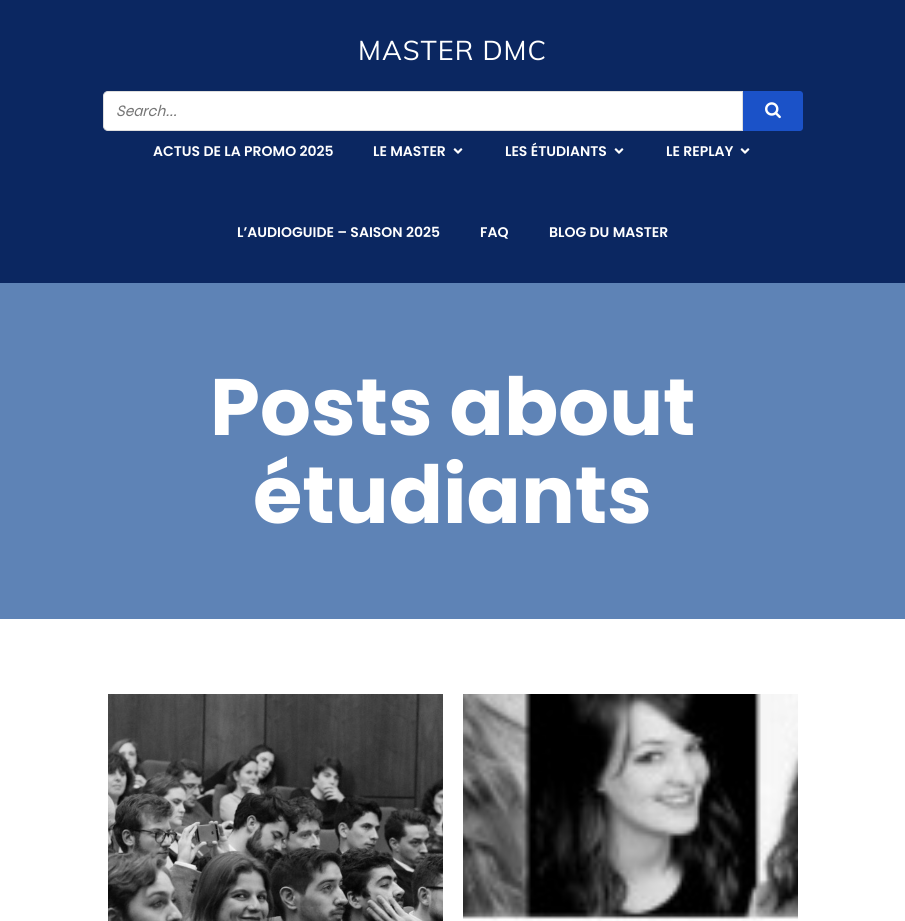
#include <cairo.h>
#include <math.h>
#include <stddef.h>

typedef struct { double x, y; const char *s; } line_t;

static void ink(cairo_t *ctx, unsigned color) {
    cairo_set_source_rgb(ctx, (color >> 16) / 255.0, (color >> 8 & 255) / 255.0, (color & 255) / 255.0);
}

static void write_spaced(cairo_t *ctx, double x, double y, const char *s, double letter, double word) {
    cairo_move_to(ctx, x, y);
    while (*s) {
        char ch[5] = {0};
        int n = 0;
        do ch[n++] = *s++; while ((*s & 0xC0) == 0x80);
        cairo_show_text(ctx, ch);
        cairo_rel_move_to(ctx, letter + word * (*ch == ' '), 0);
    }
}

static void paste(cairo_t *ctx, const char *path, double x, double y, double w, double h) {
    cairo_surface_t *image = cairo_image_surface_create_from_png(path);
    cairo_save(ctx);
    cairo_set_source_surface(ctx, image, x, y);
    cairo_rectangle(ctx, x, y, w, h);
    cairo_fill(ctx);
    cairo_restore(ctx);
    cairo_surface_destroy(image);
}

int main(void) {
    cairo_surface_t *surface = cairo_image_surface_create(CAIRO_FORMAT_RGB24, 905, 921);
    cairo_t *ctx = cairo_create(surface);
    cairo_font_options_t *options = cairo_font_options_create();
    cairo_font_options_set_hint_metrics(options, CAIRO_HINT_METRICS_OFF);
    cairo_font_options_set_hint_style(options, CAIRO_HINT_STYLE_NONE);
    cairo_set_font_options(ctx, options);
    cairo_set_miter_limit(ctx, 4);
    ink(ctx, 0xFFFFFF);
    cairo_paint(ctx);
    ink(ctx, 0x0B2761);
    cairo_rectangle(ctx, 0, 0, 905, 283);
    cairo_fill(ctx);
    cairo_select_font_face(ctx, "Muli", CAIRO_FONT_SLANT_NORMAL, CAIRO_FONT_WEIGHT_NORMAL);
    cairo_set_font_size(ctx, 27);
    ink(ctx, 0xFFFFFF);
    write_spaced(ctx, 358, 60, "MASTER DMC", 1, 0);
    cairo_new_path(ctx);
    cairo_move_to(ctx, 108, 91.5);
    cairo_line_to(ctx, 742.5, 91.5);
    cairo_line_to(ctx, 742.5, 130.5);
    cairo_line_to(ctx, 108, 130.5);
    cairo_curve_to(ctx, 105.5, 130.5, 103.5, 128.5, 103.5, 126);
    cairo_line_to(ctx, 103.5, 96);
    cairo_curve_to(ctx, 103.5, 93.5, 105.5, 91.5, 108, 91.5);
    cairo_close_path(ctx);
    cairo_fill_preserve(ctx);
    ink(ctx, 0xDEDEDE);
    cairo_set_line_width(ctx, 1);
    cairo_stroke(ctx);
    cairo_select_font_face(ctx, "Syne", CAIRO_FONT_SLANT_ITALIC, CAIRO_FONT_WEIGHT_NORMAL);
    cairo_set_font_size(ctx, 16);
    ink(ctx, 0x757575);
    cairo_move_to(ctx, 116, 116);
    cairo_show_text(ctx, "Search...");
    ink(ctx, 0x1B52C8);
    cairo_new_path(ctx);
    cairo_move_to(ctx, 743, 91);
    cairo_line_to(ctx, 800, 91);
    cairo_curve_to(ctx, 801.5, 91, 803, 92.5, 803, 94);
    cairo_line_to(ctx, 803, 128);
    cairo_curve_to(ctx, 803, 129.5, 801.5, 131, 800, 131);
    cairo_line_to(ctx, 743, 131);
    cairo_close_path(ctx);
    cairo_fill(ctx);
    paste(ctx, "media/1.png", 765, 102, 16, 17);
    cairo_select_font_face(ctx, "Poppins SemiBold", CAIRO_FONT_SLANT_NORMAL, CAIRO_FONT_WEIGHT_NORMAL);
    cairo_set_font_size(ctx, 14);
    ink(ctx, 0xFFFFFF);
    cairo_move_to(ctx, 153, 156);
    cairo_show_text(ctx, "ACTUS DE LA PROMO 2025");
    cairo_move_to(ctx, 373, 156);
    cairo_show_text(ctx, "LE MASTER");
    paste(ctx, "media/2.png", 453, 148, 10, 6);
    cairo_move_to(ctx, 505, 156);
    cairo_show_text(ctx, "LES ÉTUDIANTS");
    paste(ctx, "media/2.png", 614, 148, 10, 6);
    cairo_move_to(ctx, 666, 156);
    cairo_show_text(ctx, "LE REPLAY");
    paste(ctx, "media/2.png", 740, 148, 10, 6);
    {
        static const line_t items[] = {
            {237, 237, "L’AUDIOGUIDE – SAISON 2025"},
            {480, 237, "FAQ"},
            {549, 237, "BLOG DU MASTER"},
        };
        for (size_t i = 0; i < sizeof items / sizeof *items; i++) {
            cairo_move_to(ctx, items[i].x, items[i].y);
            cairo_show_text(ctx, items[i].s);
        }
    }
    ink(ctx, 0x5E83B6);
    cairo_rectangle(ctx, 0, 283, 905, 336);
    cairo_fill(ctx);
    cairo_select_font_face(ctx, "Poppins", CAIRO_FONT_SLANT_NORMAL, CAIRO_FONT_WEIGHT_BOLD);
    cairo_set_font_size(ctx, 80);
    ink(ctx, 0xFFFFFF);
    cairo_move_to(ctx, 210, 435);
    cairo_show_text(ctx, "Posts about");
    cairo_move_to(ctx, 253, 523);
    cairo_show_text(ctx, "étudiants");
    paste(ctx, "media/3.png", 108, 694, 335, 227);
    paste(ctx, "media/4.png", 463, 694, 335, 227);
    cairo_surface_write_to_png(surface, "image.png");
    cairo_font_options_destroy(options);
    cairo_destroy(ctx);
    cairo_surface_destroy(surface);
    return 0;
}
